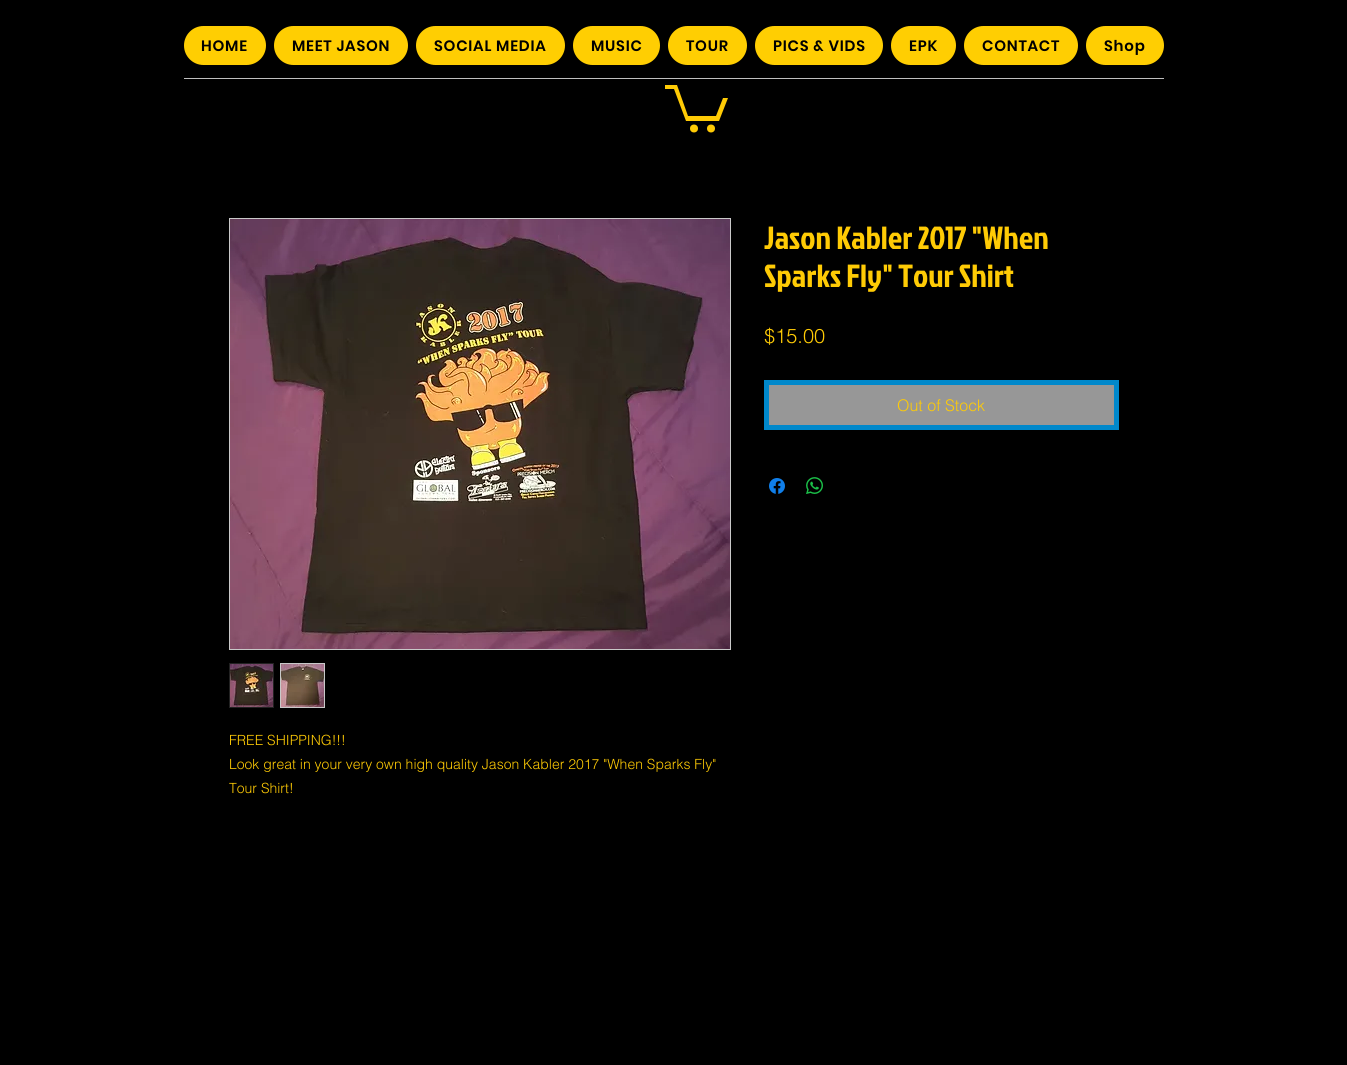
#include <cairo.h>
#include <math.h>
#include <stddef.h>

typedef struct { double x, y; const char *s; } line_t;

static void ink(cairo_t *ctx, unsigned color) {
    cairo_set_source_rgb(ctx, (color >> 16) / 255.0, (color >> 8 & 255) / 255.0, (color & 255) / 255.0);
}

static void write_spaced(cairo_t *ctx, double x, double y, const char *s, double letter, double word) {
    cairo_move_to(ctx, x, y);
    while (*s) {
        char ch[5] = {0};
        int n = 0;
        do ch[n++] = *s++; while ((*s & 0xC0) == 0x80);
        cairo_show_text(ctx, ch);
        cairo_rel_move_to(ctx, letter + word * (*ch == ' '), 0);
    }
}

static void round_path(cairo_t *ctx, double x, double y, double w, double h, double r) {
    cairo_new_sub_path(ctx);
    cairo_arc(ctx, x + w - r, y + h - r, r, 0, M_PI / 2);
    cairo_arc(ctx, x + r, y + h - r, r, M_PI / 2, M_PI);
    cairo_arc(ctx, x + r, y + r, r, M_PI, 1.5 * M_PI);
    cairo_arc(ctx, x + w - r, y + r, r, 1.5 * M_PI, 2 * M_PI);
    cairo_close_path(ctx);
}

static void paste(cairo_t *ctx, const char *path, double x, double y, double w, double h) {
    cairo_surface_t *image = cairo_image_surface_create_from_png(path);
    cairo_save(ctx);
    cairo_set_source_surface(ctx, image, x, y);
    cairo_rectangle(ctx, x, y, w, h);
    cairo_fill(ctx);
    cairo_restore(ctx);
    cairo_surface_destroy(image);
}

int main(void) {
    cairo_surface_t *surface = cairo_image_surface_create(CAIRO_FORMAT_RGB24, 1347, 1065);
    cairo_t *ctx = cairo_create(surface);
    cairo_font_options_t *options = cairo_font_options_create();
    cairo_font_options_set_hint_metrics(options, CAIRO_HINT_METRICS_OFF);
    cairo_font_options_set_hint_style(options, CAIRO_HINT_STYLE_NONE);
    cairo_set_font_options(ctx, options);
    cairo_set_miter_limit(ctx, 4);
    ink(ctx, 0x000000);
    cairo_paint(ctx);
    ink(ctx, 0xFFCE02);
    round_path(ctx, 184, 26, 82, 39, 19.5);
    cairo_fill(ctx);
    cairo_select_font_face(ctx, "Poppins SemiBold", CAIRO_FONT_SLANT_NORMAL, CAIRO_FONT_WEIGHT_NORMAL);
    cairo_set_font_size(ctx, 15);
    ink(ctx, 0x000000);
    write_spaced(ctx, 201, 51, "HOME", 0.75, 0);
    ink(ctx, 0xFFCE02);
    round_path(ctx, 274, 26, 134, 39, 19.5);
    cairo_fill(ctx);
    ink(ctx, 0x000000);
    write_spaced(ctx, 292, 51, "MEET JASON", 0.75, 0);
    ink(ctx, 0xFFCE02);
    round_path(ctx, 416, 26, 149, 39, 19.5);
    cairo_fill(ctx);
    ink(ctx, 0x000000);
    write_spaced(ctx, 434, 51, "SOCIAL MEDIA", 0.75, 0);
    ink(ctx, 0xFFCE02);
    round_path(ctx, 573, 26, 87, 39, 19.5);
    cairo_fill(ctx);
    ink(ctx, 0x000000);
    write_spaced(ctx, 591, 51, "MUSIC", 0.75, 0);
    ink(ctx, 0xFFCE02);
    round_path(ctx, 668, 26, 79, 39, 19.5);
    cairo_fill(ctx);
    ink(ctx, 0x000000);
    write_spaced(ctx, 686, 51, "TOUR", 0.75, 0);
    ink(ctx, 0xFFCE02);
    round_path(ctx, 755, 26, 128, 39, 19.5);
    cairo_fill(ctx);
    ink(ctx, 0x000000);
    write_spaced(ctx, 773, 51, "PICS & VIDS", 0.75, 0);
    ink(ctx, 0xFFCE02);
    round_path(ctx, 891, 26, 65, 39, 19.5);
    cairo_fill(ctx);
    ink(ctx, 0x000000);
    write_spaced(ctx, 909, 51, "EPK", 0.75, 0);
    ink(ctx, 0xFFCE02);
    round_path(ctx, 964, 26, 114, 39, 19.5);
    cairo_fill(ctx);
    ink(ctx, 0x000000);
    write_spaced(ctx, 982, 51, "CONTACT", 0.75, 0);
    ink(ctx, 0xFFCE02);
    round_path(ctx, 1086, 26, 78, 39, 19.5);
    cairo_fill(ctx);
    ink(ctx, 0x000000);
    write_spaced(ctx, 1104, 51, "Shop", 0.75, 0);
    ink(ctx, 0xBFBFBF);
    cairo_rectangle(ctx, 184, 78, 980, 1);
    cairo_fill(ctx);
    ink(ctx, 0xFFCB05);
    cairo_new_path(ctx);
    cairo_move_to(ctx, 728, 98);
    cairo_line_to(ctx, 719, 121);
    cairo_line_to(ctx, 686, 121);
    cairo_line_to(ctx, 674, 89);
    cairo_line_to(ctx, 665, 89);
    cairo_line_to(ctx, 665, 85);
    cairo_line_to(ctx, 677, 85);
    cairo_line_to(ctx, 688, 116);
    cairo_line_to(ctx, 716, 116);
    cairo_line_to(ctx, 723, 98);
    cairo_fill(ctx);
    cairo_arc(ctx, 711, 128.5, 4, 0, 2 * M_PI);
    cairo_fill(ctx);
    cairo_arc(ctx, 694, 128.5, 4, 0, 2 * M_PI);
    cairo_fill(ctx);
    cairo_select_font_face(ctx, "Jockey One", CAIRO_FONT_SLANT_NORMAL, CAIRO_FONT_WEIGHT_NORMAL);
    cairo_set_font_size(ctx, 32);
    cairo_move_to(ctx, 764, 249);
    cairo_show_text(ctx, "Jason Kabler 2017 \"When");
    cairo_move_to(ctx, 764, 287);
    cairo_show_text(ctx, "Sparks Fly\" Tour Shirt");
    cairo_select_font_face(ctx, "helvetica Light", CAIRO_FONT_SLANT_NORMAL, CAIRO_FONT_WEIGHT_NORMAL);
    cairo_set_font_size(ctx, 20);
    cairo_move_to(ctx, 764, 343);
    cairo_show_text(ctx, "$15.00");
    ink(ctx, 0x979797);
    cairo_rectangle(ctx, 766.5, 382.5, 350, 45);
    cairo_fill_preserve(ctx);
    ink(ctx, 0x0088CB);
    cairo_set_line_width(ctx, 5);
    cairo_stroke(ctx);
    cairo_set_font_size(ctx, 16);
    ink(ctx, 0xFFCB05);
    cairo_move_to(ctx, 897, 411);
    cairo_show_text(ctx, "Out of Stock");
    paste(ctx, "media/1.png", 769, 478, 16, 16);
    paste(ctx, "media/2.png", 806, 477, 17, 17);
    cairo_rectangle(ctx, 229.5, 218.5, 501, 431);
    ink(ctx, 0xC9C9C9);
    cairo_set_line_width(ctx, 1);
    cairo_stroke(ctx);
    paste(ctx, "media/3.png", 230, 219, 500, 430);
    cairo_rectangle(ctx, 229.5, 663.5, 44, 44);
    ink(ctx, 0x222222);
    cairo_stroke(ctx);
    paste(ctx, "media/4.png", 230, 664, 43, 43);
    ink(ctx, 0xC9C9C9);
    cairo_rectangle(ctx, 280, 663, 45, 45);
    cairo_fill(ctx);
    paste(ctx, "media/5.png", 281, 664, 43, 43);
    cairo_set_font_size(ctx, 14);
    ink(ctx, 0xFFCB05);
    {
        static const line_t items[] = {
            {229, 745, "FREE SHIPPING!!!"},
            {229, 769, "Look great in your very own high quality Jason Kabler 2017 \"When Sparks Fly\""},
            {229, 793, "Tour Shirt!"},
        };
        for (size_t i = 0; i < sizeof items / sizeof *items; i++) {
            cairo_move_to(ctx, items[i].x, items[i].y);
            cairo_show_text(ctx, items[i].s);
        }
    }
    cairo_surface_write_to_png(surface, "image.png");
    cairo_font_options_destroy(options);
    cairo_destroy(ctx);
    cairo_surface_destroy(surface);
    return 0;
}
